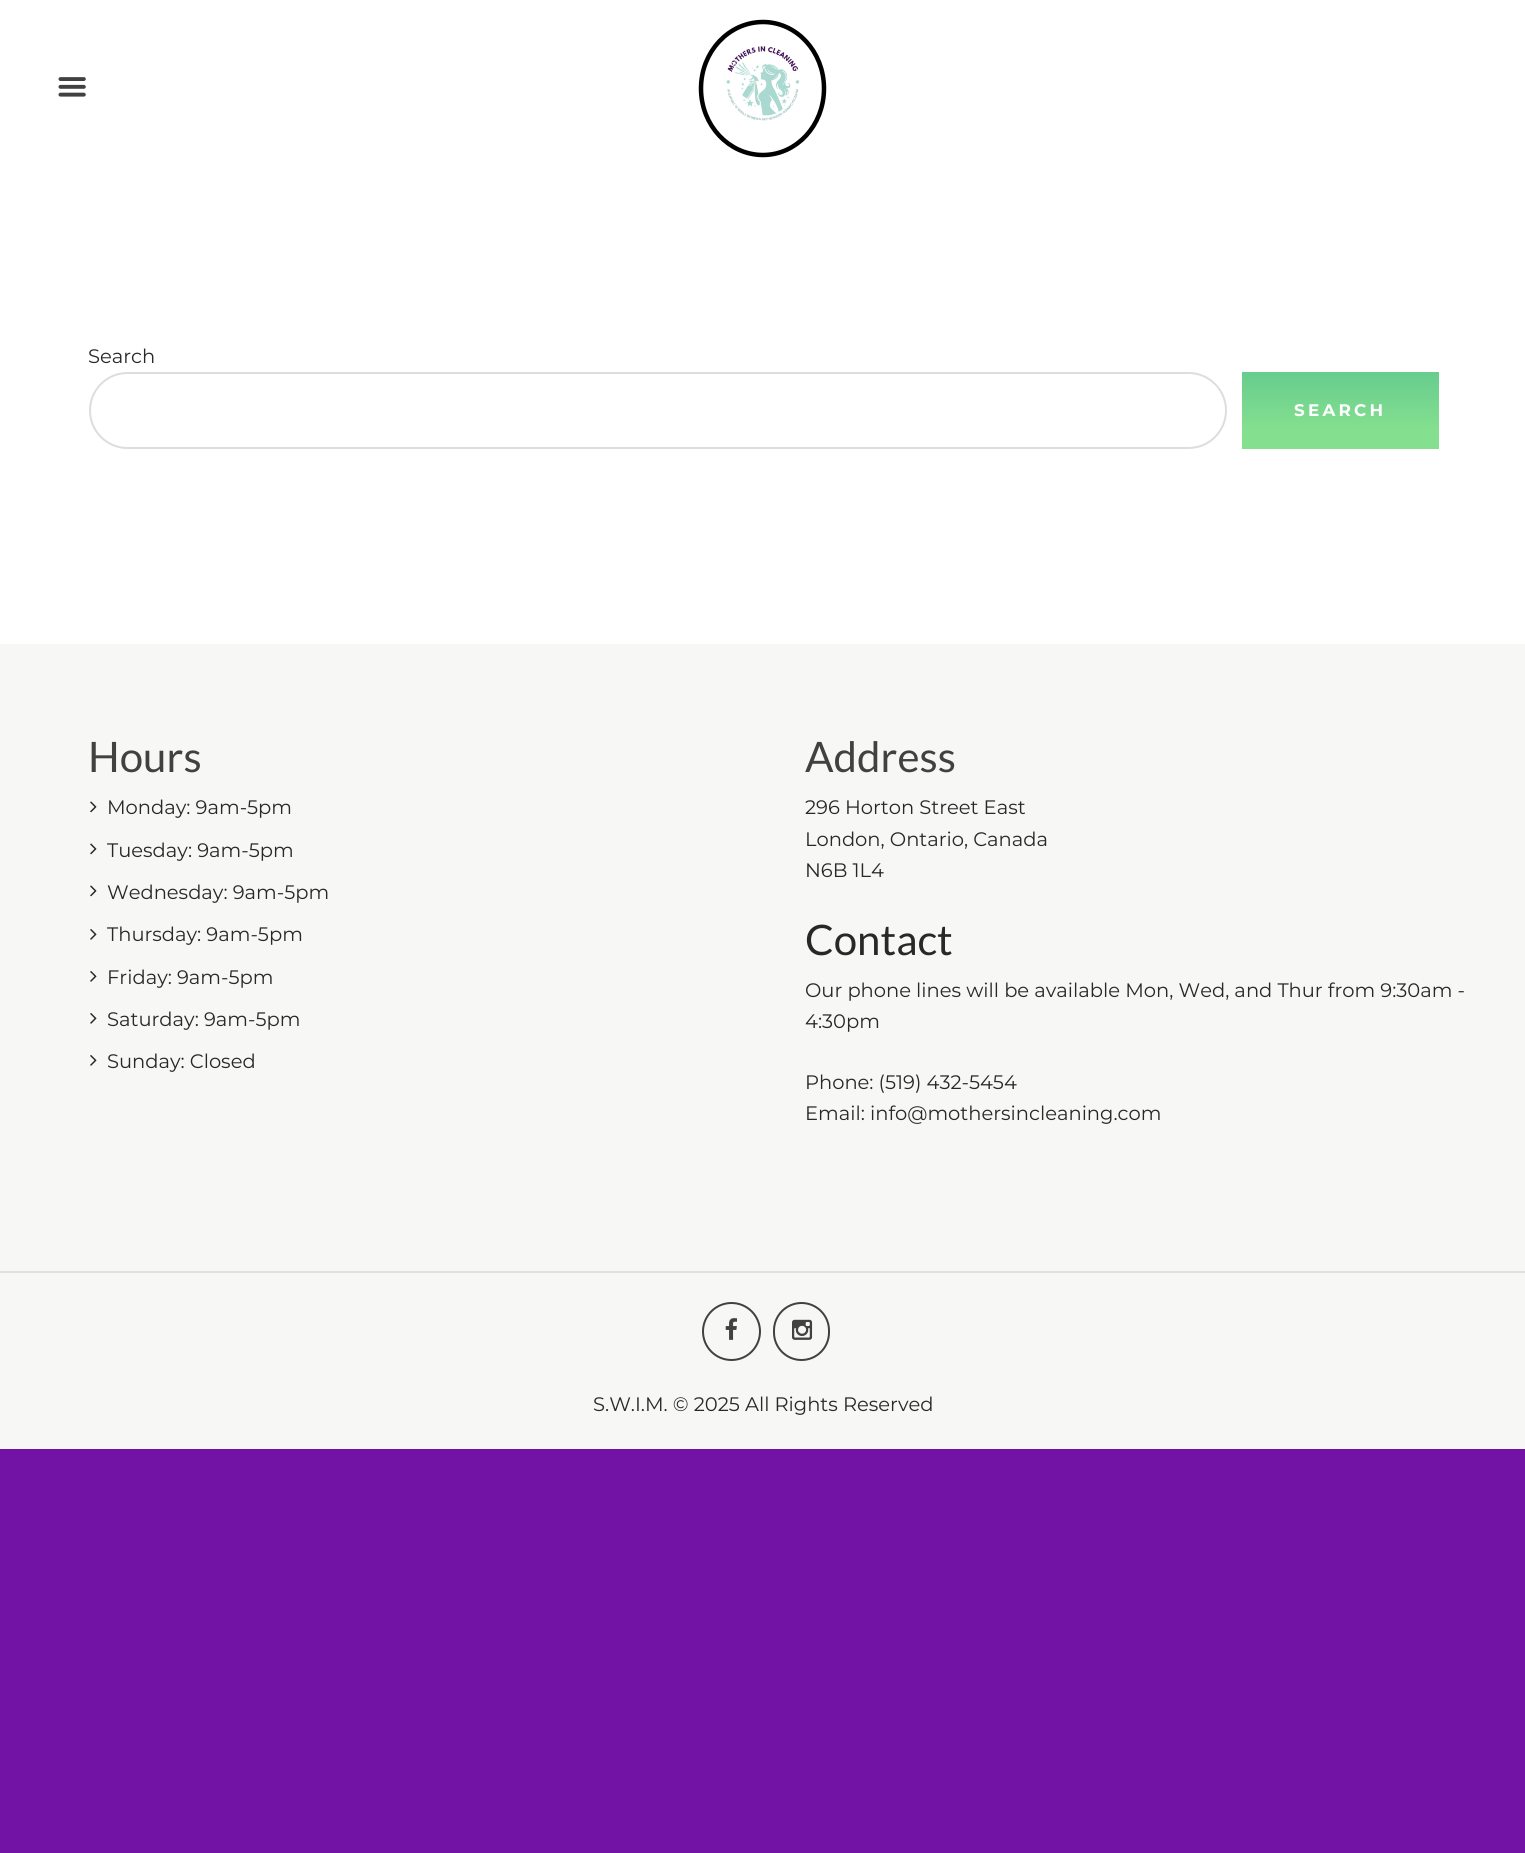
#include <cairo.h>
#include <math.h>
#include <stddef.h>

typedef struct { double x, y; const char *s; } line_t;

static void ink(cairo_t *ctx, unsigned color) {
    cairo_set_source_rgb(ctx, (color >> 16) / 255.0, (color >> 8 & 255) / 255.0, (color & 255) / 255.0);
}

static void write_spaced(cairo_t *ctx, double x, double y, const char *s, double letter, double word) {
    cairo_move_to(ctx, x, y);
    while (*s) {
        char ch[5] = {0};
        int n = 0;
        do ch[n++] = *s++; while ((*s & 0xC0) == 0x80);
        cairo_show_text(ctx, ch);
        cairo_rel_move_to(ctx, letter + word * (*ch == ' '), 0);
    }
}

static void round_path(cairo_t *ctx, double x, double y, double w, double h, double r) {
    cairo_new_sub_path(ctx);
    cairo_arc(ctx, x + w - r, y + h - r, r, 0, M_PI / 2);
    cairo_arc(ctx, x + r, y + h - r, r, M_PI / 2, M_PI);
    cairo_arc(ctx, x + r, y + r, r, M_PI, 1.5 * M_PI);
    cairo_arc(ctx, x + w - r, y + r, r, 1.5 * M_PI, 2 * M_PI);
    cairo_close_path(ctx);
}

static void paste(cairo_t *ctx, const char *path, double x, double y, double w, double h) {
    cairo_surface_t *image = cairo_image_surface_create_from_png(path);
    cairo_save(ctx);
    cairo_set_source_surface(ctx, image, x, y);
    cairo_rectangle(ctx, x, y, w, h);
    cairo_fill(ctx);
    cairo_restore(ctx);
    cairo_surface_destroy(image);
}

int main(void) {
    cairo_surface_t *surface = cairo_image_surface_create(CAIRO_FORMAT_RGB24, 1525, 1853);
    cairo_t *ctx = cairo_create(surface);
    cairo_font_options_t *options = cairo_font_options_create();
    cairo_font_options_set_hint_metrics(options, CAIRO_HINT_METRICS_OFF);
    cairo_font_options_set_hint_style(options, CAIRO_HINT_STYLE_NONE);
    cairo_set_font_options(ctx, options);
    cairo_set_miter_limit(ctx, 4);
    cairo_pattern_t *gradient;
    ink(ctx, 0x7213A5);
    cairo_paint(ctx);
    ink(ctx, 0xFFFFFF);
    cairo_rectangle(ctx, 0, 0, 1525, 644);
    cairo_fill(ctx);
    paste(ctx, "media/1.png", 58, 77, 28, 20);
    cairo_new_path(ctx);
    cairo_move_to(ctx, 763, 22);
    cairo_curve_to(ctx, 796.5, 22, 824, 51.5, 824, 88.5);
    cairo_curve_to(ctx, 824, 125.5, 796.5, 155, 763, 155);
    cairo_curve_to(ctx, 729, 155, 701, 125.5, 701, 88.5);
    cairo_curve_to(ctx, 701, 51.5, 729, 22, 763, 22);
    cairo_close_path(ctx);
    ink(ctx, 0x000000);
    cairo_set_line_width(ctx, 4.5);
    cairo_stroke(ctx);
    paste(ctx, "media/2.png", 726, 46, 74, 75);
    cairo_select_font_face(ctx, "Montserrat", CAIRO_FONT_SLANT_NORMAL, CAIRO_FONT_WEIGHT_NORMAL);
    cairo_set_font_size(ctx, 19.5);
    ink(ctx, 0x282828);
    cairo_move_to(ctx, 88, 363);
    cairo_show_text(ctx, "Search");
    round_path(ctx, 90, 373, 1136, 75, 37.5);
    ink(ctx, 0xDDDDDD);
    cairo_set_line_width(ctx, 2);
    cairo_stroke(ctx);
    gradient = cairo_pattern_create_linear(1340, 372, 1340, 449);
    cairo_pattern_add_color_stop_rgba(gradient, 0, 0.404, 0.8, 0.557, 1);
    cairo_pattern_add_color_stop_rgba(gradient, 0.75, 0.518, 0.878, 0.561, 1);
    cairo_set_source(ctx, gradient);
    cairo_pattern_destroy(gradient);
    cairo_rectangle(ctx, 1242, 372, 197, 77);
    cairo_fill(ctx);
    cairo_select_font_face(ctx, "Montserrat", CAIRO_FONT_SLANT_NORMAL, CAIRO_FONT_WEIGHT_BOLD);
    cairo_set_font_size(ctx, 16.75);
    ink(ctx, 0xFFFFFF);
    write_spaced(ctx, 1294, 416, "SEARCH", 3.25, 0);
    ink(ctx, 0xF7F7F6);
    cairo_rectangle(ctx, 0, 644, 1525, 627);
    cairo_fill(ctx);
    cairo_select_font_face(ctx, "Lato", CAIRO_FONT_SLANT_NORMAL, CAIRO_FONT_WEIGHT_NORMAL);
    cairo_set_font_size(ctx, 42);
    ink(ctx, 0x414141);
    cairo_move_to(ctx, 88, 772);
    cairo_show_text(ctx, "Hours");
    paste(ctx, "media/3.png", 90, 801, 7, 12);
    cairo_select_font_face(ctx, "Montserrat", CAIRO_FONT_SLANT_NORMAL, CAIRO_FONT_WEIGHT_NORMAL);
    cairo_set_font_size(ctx, 19.5);
    ink(ctx, 0x282828);
    cairo_move_to(ctx, 107, 814);
    cairo_show_text(ctx, "Monday: 9am-5pm");
    paste(ctx, "media/3.png", 90, 843, 7, 12);
    cairo_move_to(ctx, 107, 857);
    cairo_show_text(ctx, "Tuesday: 9am-5pm");
    paste(ctx, "media/3.png", 90, 885, 7, 12);
    cairo_move_to(ctx, 107, 899);
    cairo_show_text(ctx, "Wednesday: 9am-5pm");
    paste(ctx, "media/4.png", 90, 929, 7, 11);
    cairo_move_to(ctx, 107, 941);
    cairo_show_text(ctx, "Thursday: 9am-5pm");
    paste(ctx, "media/4.png", 90, 971, 7, 11);
    cairo_move_to(ctx, 107, 984);
    cairo_show_text(ctx, "Friday: 9am-5pm");
    paste(ctx, "media/4.png", 90, 1013, 7, 11);
    cairo_move_to(ctx, 107, 1026);
    cairo_show_text(ctx, "Saturday: 9am-5pm");
    paste(ctx, "media/4.png", 90, 1055, 7, 11);
    cairo_move_to(ctx, 107, 1068);
    cairo_show_text(ctx, "Sunday: Closed");
    cairo_select_font_face(ctx, "Lato", CAIRO_FONT_SLANT_NORMAL, CAIRO_FONT_WEIGHT_NORMAL);
    cairo_set_font_size(ctx, 42);
    ink(ctx, 0x414141);
    cairo_move_to(ctx, 805, 772);
    cairo_show_text(ctx, "Address");
    cairo_select_font_face(ctx, "Montserrat", CAIRO_FONT_SLANT_NORMAL, CAIRO_FONT_WEIGHT_NORMAL);
    cairo_set_font_size(ctx, 19.5);
    ink(ctx, 0x282828);
    {
        static const line_t items[] = {
            {805, 814, "296 Horton Street East"},
            {805, 846, "London, Ontario, Canada"},
            {805, 877, "N6B 1L4"},
        };
        for (size_t i = 0; i < sizeof items / sizeof *items; i++) {
            cairo_move_to(ctx, items[i].x, items[i].y);
            cairo_show_text(ctx, items[i].s);
        }
    }
    cairo_select_font_face(ctx, "Lato", CAIRO_FONT_SLANT_NORMAL, CAIRO_FONT_WEIGHT_NORMAL);
    cairo_set_font_size(ctx, 42);
    cairo_move_to(ctx, 805, 955);
    cairo_show_text(ctx, "Contact");
    cairo_select_font_face(ctx, "Montserrat", CAIRO_FONT_SLANT_NORMAL, CAIRO_FONT_WEIGHT_NORMAL);
    cairo_set_font_size(ctx, 19.5);
    {
        static const line_t items[] = {
            {805, 997, "Our phone lines will be available Mon, Wed, and Thur from 9:30am -"},
            {805, 1028, "4:30pm"},
            {805, 1089, "Phone: (519) 432-5454"},
            {805, 1120, "Email: info@mothersincleaning.com"},
        };
        for (size_t i = 0; i < sizeof items / sizeof *items; i++) {
            cairo_move_to(ctx, items[i].x, items[i].y);
            cairo_show_text(ctx, items[i].s);
        }
    }
    ink(ctx, 0xF7F7F6);
    cairo_rectangle(ctx, 0, 1273, 1525, 176);
    cairo_fill(ctx);
    ink(ctx, 0xE1E0DF);
    cairo_rectangle(ctx, 0, 1271, 1525, 2);
    cairo_fill(ctx);
    cairo_arc(ctx, 731.5, 1331.5, 28.5, 0, 2 * M_PI);
    ink(ctx, 0x414141);
    cairo_stroke(ctx);
    paste(ctx, "media/5.png", 725, 1318, 12, 22);
    round_path(ctx, 774, 1303, 55, 57, 27.5);
    cairo_stroke(ctx);
    paste(ctx, "media/6.png", 792, 1319, 21, 21);
    ink(ctx, 0x282828);
    cairo_move_to(ctx, 593, 1411);
    cairo_show_text(ctx, "S.W.I.M. © 2025 All Rights Reserved");
    cairo_surface_write_to_png(surface, "image.png");
    cairo_font_options_destroy(options);
    cairo_destroy(ctx);
    cairo_surface_destroy(surface);
    return 0;
}
